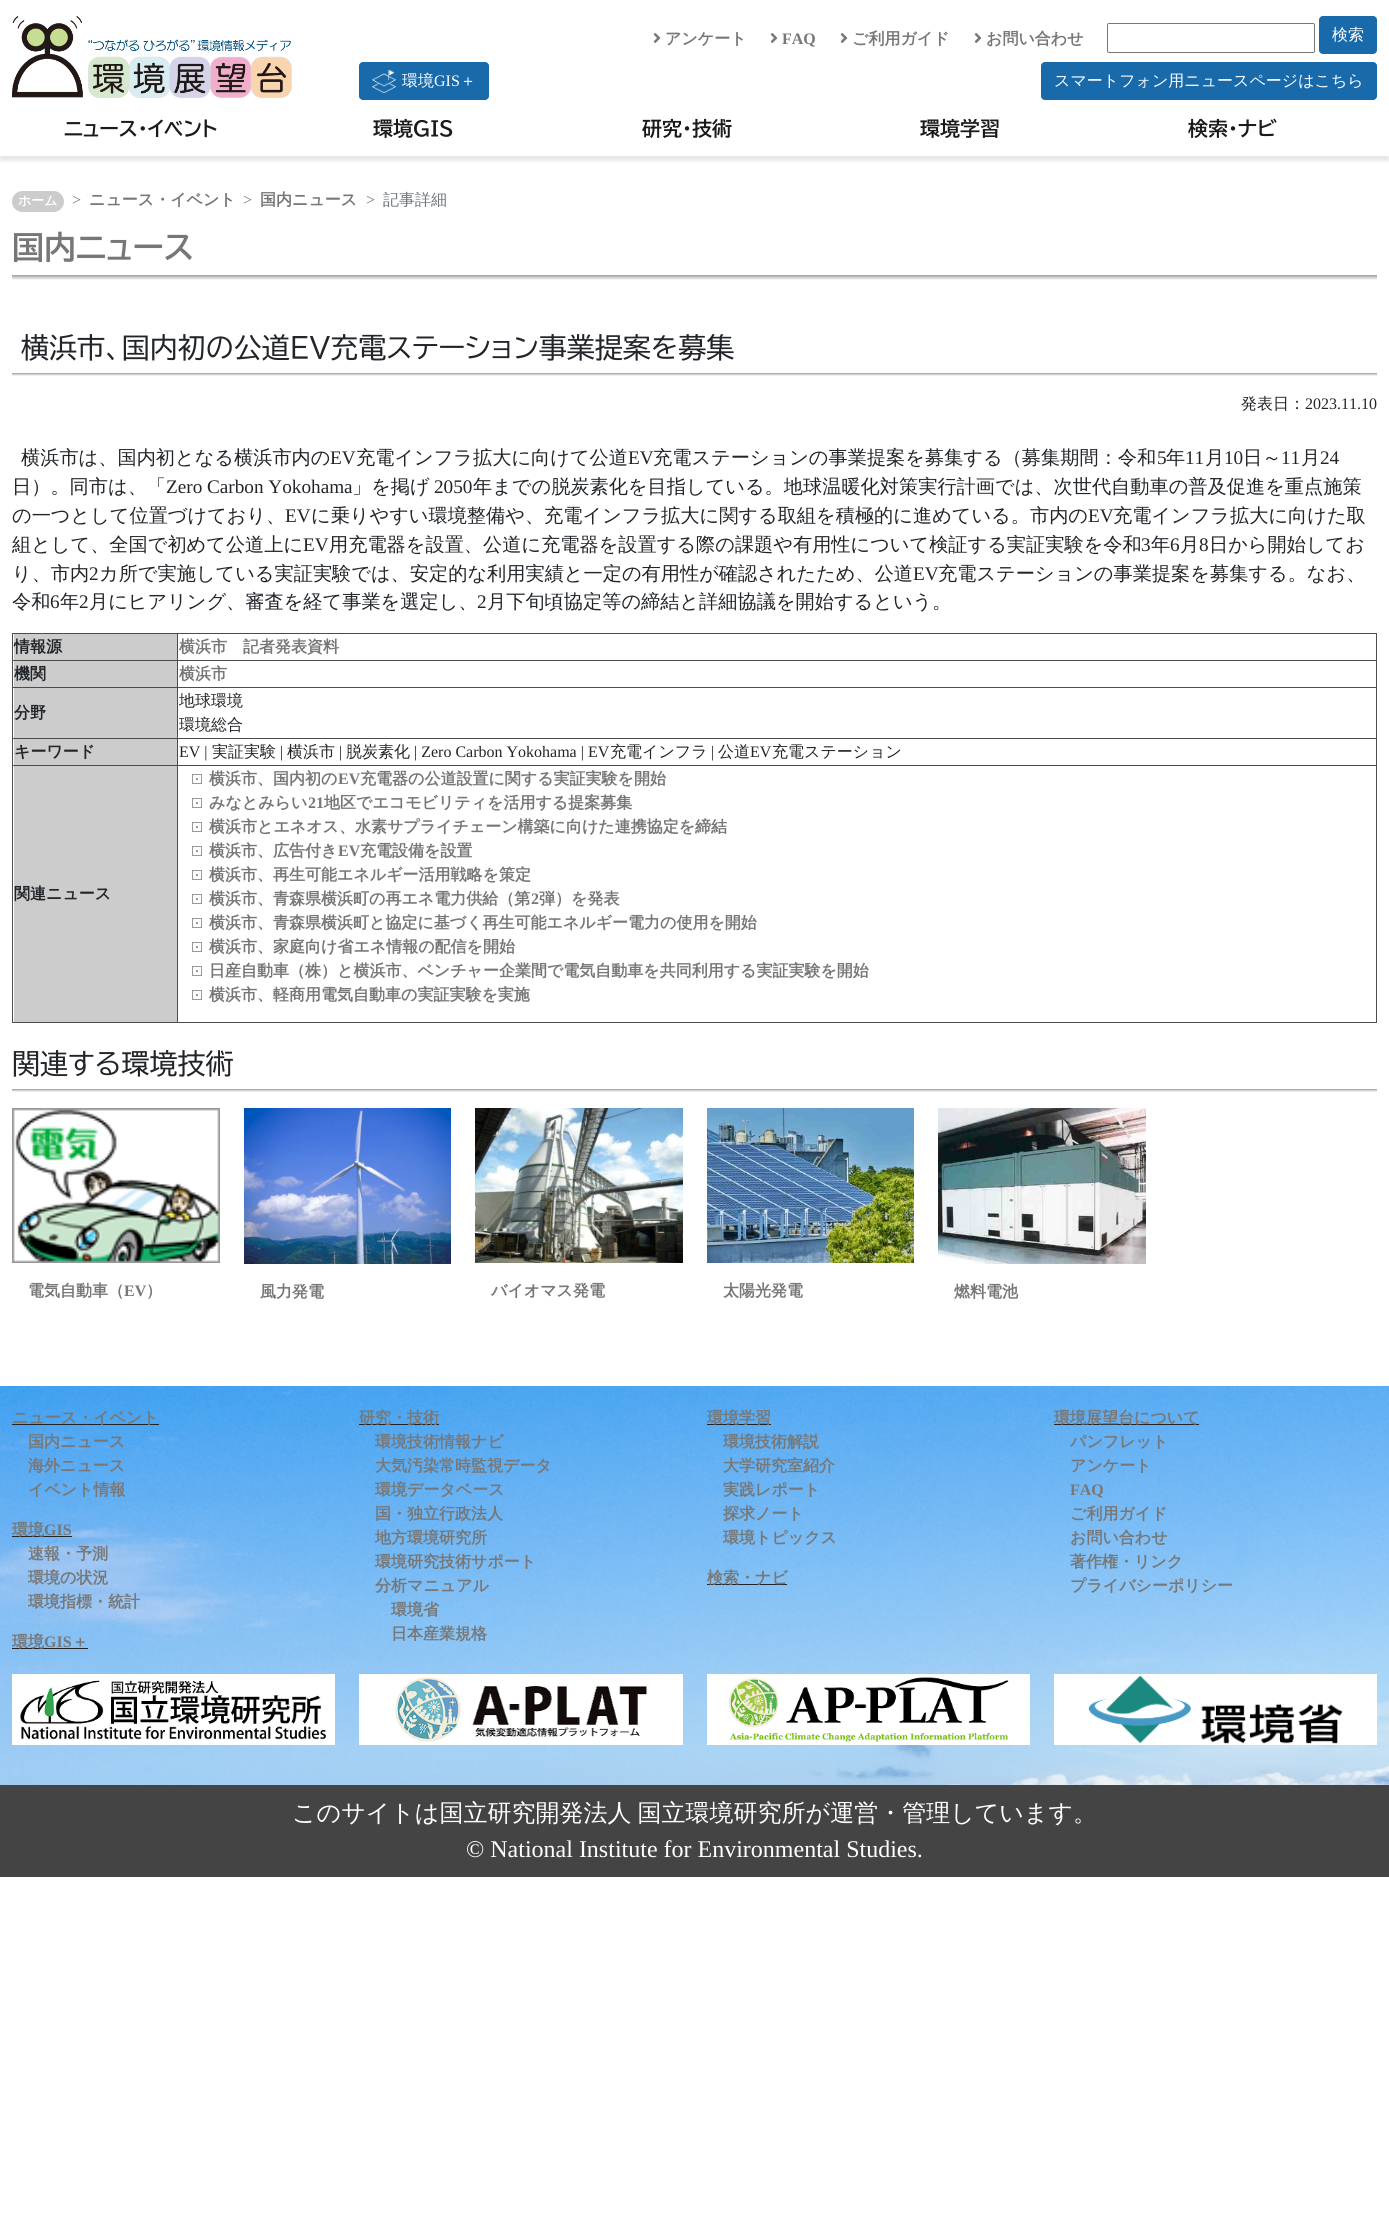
#include <cairo.h>
#include <math.h>
#include <stddef.h>

typedef struct { double x, y; const char *s; } line_t;
typedef struct { double x, y, w, h; unsigned color; } box_t;

static void ink(cairo_t *ctx, unsigned color) {
    cairo_set_source_rgb(ctx, (color >> 16) / 255.0, (color >> 8 & 255) / 255.0, (color & 255) / 255.0);
}

static void write_spaced(cairo_t *ctx, double x, double y, const char *s, double letter, double word) {
    cairo_move_to(ctx, x, y);
    while (*s) {
        char ch[5] = {0};
        int n = 0;
        do ch[n++] = *s++; while ((*s & 0xC0) == 0x80);
        cairo_show_text(ctx, ch);
        cairo_rel_move_to(ctx, letter + word * (*ch == ' '), 0);
    }
}

static void round_path(cairo_t *ctx, double x, double y, double w, double h, double r) {
    cairo_new_sub_path(ctx);
    cairo_arc(ctx, x + w - r, y + h - r, r, 0, M_PI / 2);
    cairo_arc(ctx, x + r, y + h - r, r, M_PI / 2, M_PI);
    cairo_arc(ctx, x + r, y + r, r, M_PI, 1.5 * M_PI);
    cairo_arc(ctx, x + w - r, y + r, r, 1.5 * M_PI, 2 * M_PI);
    cairo_close_path(ctx);
}

static void blur_box(cairo_t *ctx, double x, double y, double w, double h, double r, double blur, double alpha) {
    cairo_push_group_with_content(ctx, CAIRO_CONTENT_ALPHA);
    cairo_set_operator(ctx, CAIRO_OPERATOR_SOURCE);
    for (int i = 15; i >= -15 && fmin(w, h) + blur * i / 3 > 0; i -= 2) {
        double e = blur * i / 6;
        cairo_set_source_rgba(ctx, 0, 0, 0, alpha * erfc((i - 1) / 8.5) / 2);
        round_path(ctx, x - e, y - e, w + 2 * e, h + 2 * e, fmax(0, fmin(r + e + blur * .6, fmin(w, h) / 2 + e)));
        cairo_fill(ctx);
    }
    cairo_pattern_t *soft = cairo_pop_group(ctx);
    cairo_mask(ctx, soft);
    cairo_pattern_destroy(soft);
}

static void paste(cairo_t *ctx, const char *path, double x, double y, double w, double h) {
    cairo_surface_t *image = cairo_image_surface_create_from_png(path);
    cairo_save(ctx);
    cairo_set_source_surface(ctx, image, x, y);
    cairo_rectangle(ctx, x, y, w, h);
    cairo_fill(ctx);
    cairo_restore(ctx);
    cairo_surface_destroy(image);
}

int main(void) {
    cairo_surface_t *surface = cairo_image_surface_create(CAIRO_FORMAT_RGB24, 1389, 2226);
    cairo_t *ctx = cairo_create(surface);
    cairo_font_options_t *options = cairo_font_options_create();
    cairo_font_options_set_hint_metrics(options, CAIRO_HINT_METRICS_OFF);
    cairo_font_options_set_hint_style(options, CAIRO_HINT_STYLE_NONE);
    cairo_set_font_options(ctx, options);
    cairo_set_miter_limit(ctx, 4);
    cairo_pattern_t *gradient;
    ink(ctx, 0xFFFFFF);
    cairo_paint(ctx);
    cairo_save(ctx);
    cairo_rectangle(ctx, 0, 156, 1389, 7);
    cairo_clip(ctx);
    ink(ctx, 0x000000);
    blur_box(ctx, 0, 21, 1389, 140, 0, 2, 0.1);
    cairo_restore(ctx);
    paste(ctx, "media/1.png", 12, 16, 280, 82);
    paste(ctx, "media/2.png", 653, 33, 8, 10);
    cairo_select_font_face(ctx, "WenQuanYi Zen Hei", CAIRO_FONT_SLANT_NORMAL, CAIRO_FONT_WEIGHT_BOLD);
    cairo_set_font_size(ctx, 16);
    ink(ctx, 0x777777);
    cairo_move_to(ctx, 665, 44);
    cairo_show_text(ctx, "アンケート");
    paste(ctx, "media/2.png", 770, 33, 8, 10);
    cairo_select_font_face(ctx, "Liberation Serif", CAIRO_FONT_SLANT_NORMAL, CAIRO_FONT_WEIGHT_BOLD);
    cairo_move_to(ctx, 782, 44);
    cairo_show_text(ctx, "FAQ");
    paste(ctx, "media/2.png", 840, 33, 8, 10);
    cairo_select_font_face(ctx, "WenQuanYi Zen Hei", CAIRO_FONT_SLANT_NORMAL, CAIRO_FONT_WEIGHT_BOLD);
    cairo_move_to(ctx, 852, 44);
    cairo_show_text(ctx, "ご利用ガイド");
    paste(ctx, "media/2.png", 974, 33, 8, 10);
    cairo_move_to(ctx, 986, 44);
    cairo_show_text(ctx, "お問い合わせ");
    round_path(ctx, 1107.5, 23.5, 207, 29, 1.5);
    ink(ctx, 0x767676);
    cairo_set_line_width(ctx, 1);
    cairo_stroke(ctx);
    ink(ctx, 0x196AAB);
    round_path(ctx, 1319.5, 16.5, 57, 37, 3.5);
    cairo_fill_preserve(ctx);
    cairo_stroke(ctx);
    cairo_select_font_face(ctx, "WenQuanYi Zen Hei Medium", CAIRO_FONT_SLANT_NORMAL, CAIRO_FONT_WEIGHT_NORMAL);
    ink(ctx, 0xFFFFFF);
    cairo_move_to(ctx, 1332, 40);
    cairo_show_text(ctx, "検索");
    ink(ctx, 0x196AAB);
    round_path(ctx, 359.5, 62.5, 129, 37, 3.5);
    cairo_fill_preserve(ctx);
    cairo_stroke(ctx);
    paste(ctx, "media/3.png", 372, 69, 24, 24);
    ink(ctx, 0xFFFFFF);
    cairo_move_to(ctx, 402, 86);
    cairo_show_text(ctx, "環境");
    cairo_select_font_face(ctx, "Liberation Serif", CAIRO_FONT_SLANT_NORMAL, CAIRO_FONT_WEIGHT_NORMAL);
    cairo_move_to(ctx, 434, 86);
    cairo_show_text(ctx, "GIS");
    cairo_select_font_face(ctx, "WenQuanYi Zen Hei Medium", CAIRO_FONT_SLANT_NORMAL, CAIRO_FONT_WEIGHT_NORMAL);
    cairo_move_to(ctx, 460, 86);
    cairo_show_text(ctx, "＋");
    ink(ctx, 0x196AAB);
    round_path(ctx, 1041.5, 62.5, 335, 37, 3.5);
    cairo_fill_preserve(ctx);
    cairo_stroke(ctx);
    ink(ctx, 0xFFFFFF);
    cairo_move_to(ctx, 1054, 86);
    cairo_show_text(ctx, "スマートフォン用ニュースページはこちら");
    cairo_select_font_face(ctx, "BIZ UDPGothic", CAIRO_FONT_SLANT_NORMAL, CAIRO_FONT_WEIGHT_BOLD);
    cairo_set_font_size(ctx, 20);
    ink(ctx, 0x1A1A1A);
    {
        static const line_t items[] = {
            {64, 136, "ニュース・イベント"},
            {373, 136, "環境GIS"},
            {642, 136, "研究・技術"},
            {920, 136, "環境学習"},
            {1188, 136, "検索・ナビ"},
        };
        for (size_t i = 0; i < sizeof items / sizeof *items; i++) {
            cairo_move_to(ctx, items[i].x, items[i].y);
            cairo_show_text(ctx, items[i].s);
        }
    }
    ink(ctx, 0xCCCCCC);
    round_path(ctx, 12, 191, 52, 21, 10.5);
    cairo_fill(ctx);
    cairo_select_font_face(ctx, "WenQuanYi Zen Hei", CAIRO_FONT_SLANT_NORMAL, CAIRO_FONT_WEIGHT_BOLD);
    cairo_set_font_size(ctx, 13);
    ink(ctx, 0xFFFFFF);
    cairo_move_to(ctx, 18, 205);
    cairo_show_text(ctx, "ホーム");
    cairo_select_font_face(ctx, "Liberation Serif", CAIRO_FONT_SLANT_NORMAL, CAIRO_FONT_WEIGHT_NORMAL);
    cairo_set_font_size(ctx, 16);
    ink(ctx, 0x6C757D);
    cairo_move_to(ctx, 72, 205);
    cairo_show_text(ctx, ">");
    cairo_select_font_face(ctx, "WenQuanYi Zen Hei", CAIRO_FONT_SLANT_NORMAL, CAIRO_FONT_WEIGHT_BOLD);
    ink(ctx, 0x777777);
    cairo_move_to(ctx, 89, 205);
    cairo_show_text(ctx, "ニュース・イベント");
    cairo_select_font_face(ctx, "Liberation Serif", CAIRO_FONT_SLANT_NORMAL, CAIRO_FONT_WEIGHT_NORMAL);
    ink(ctx, 0x6C757D);
    cairo_move_to(ctx, 243, 205);
    cairo_show_text(ctx, ">");
    cairo_select_font_face(ctx, "WenQuanYi Zen Hei", CAIRO_FONT_SLANT_NORMAL, CAIRO_FONT_WEIGHT_BOLD);
    ink(ctx, 0x777777);
    cairo_move_to(ctx, 260, 205);
    cairo_show_text(ctx, "国内ニュース");
    cairo_select_font_face(ctx, "Liberation Serif", CAIRO_FONT_SLANT_NORMAL, CAIRO_FONT_WEIGHT_NORMAL);
    ink(ctx, 0x6C757D);
    cairo_move_to(ctx, 366, 205);
    cairo_show_text(ctx, ">");
    cairo_select_font_face(ctx, "WenQuanYi Zen Hei Medium", CAIRO_FONT_SLANT_NORMAL, CAIRO_FONT_WEIGHT_NORMAL);
    cairo_move_to(ctx, 383, 205);
    cairo_show_text(ctx, "記事詳細");
    cairo_select_font_face(ctx, "BIZ UDPGothic", CAIRO_FONT_SLANT_NORMAL, CAIRO_FONT_WEIGHT_BOLD);
    cairo_set_font_size(ctx, 32);
    ink(ctx, 0x777777);
    cairo_move_to(ctx, 12, 259);
    cairo_show_text(ctx, "国内ニュース");
    gradient = cairo_pattern_create_linear(695, 275, 695, 280);
    cairo_pattern_add_color_stop_rgba(gradient, 0, 0.62, 0.62, 0.62, 1);
    cairo_pattern_add_color_stop_rgba(gradient, 1, 1, 1, 1, 1);
    cairo_set_source(ctx, gradient);
    cairo_pattern_destroy(gradient);
    cairo_rectangle(ctx, 12, 275, 1365, 5);
    cairo_fill(ctx);
    cairo_select_font_face(ctx, "BIZ UDPGothic", CAIRO_FONT_SLANT_NORMAL, CAIRO_FONT_WEIGHT_NORMAL);
    cairo_set_font_size(ctx, 28);
    ink(ctx, 0x212529);
    cairo_move_to(ctx, 21, 358);
    cairo_show_text(ctx, "横浜市、国内初の公道EV充電ステーション事業提案を募集");
    gradient = cairo_pattern_create_linear(695, 373, 695, 376);
    cairo_pattern_add_color_stop_rgba(gradient, 0, 0.62, 0.62, 0.62, 1);
    cairo_pattern_add_color_stop_rgba(gradient, 1, 1, 1, 1, 1);
    cairo_set_source(ctx, gradient);
    cairo_pattern_destroy(gradient);
    cairo_rectangle(ctx, 12, 373, 1365, 3);
    cairo_fill(ctx);
    cairo_select_font_face(ctx, "WenQuanYi Zen Hei Medium", CAIRO_FONT_SLANT_NORMAL, CAIRO_FONT_WEIGHT_NORMAL);
    cairo_set_font_size(ctx, 16);
    ink(ctx, 0x212529);
    cairo_move_to(ctx, 1241, 409);
    cairo_show_text(ctx, "発表日：");
    cairo_select_font_face(ctx, "Liberation Serif", CAIRO_FONT_SLANT_NORMAL, CAIRO_FONT_WEIGHT_NORMAL);
    cairo_move_to(ctx, 1305, 409);
    cairo_show_text(ctx, "2023.11.10");
    cairo_select_font_face(ctx, "WenQuanYi Zen Hei Medium", CAIRO_FONT_SLANT_NORMAL, CAIRO_FONT_WEIGHT_NORMAL);
    cairo_set_font_size(ctx, 19.2);
    cairo_move_to(ctx, 21, 464);
    cairo_show_text(ctx, "横浜市は、国内初となる横浜市内の");
    cairo_select_font_face(ctx, "Liberation Serif", CAIRO_FONT_SLANT_NORMAL, CAIRO_FONT_WEIGHT_NORMAL);
    cairo_move_to(ctx, 330, 464);
    cairo_show_text(ctx, "EV");
    cairo_select_font_face(ctx, "WenQuanYi Zen Hei Medium", CAIRO_FONT_SLANT_NORMAL, CAIRO_FONT_WEIGHT_NORMAL);
    cairo_move_to(ctx, 356, 464);
    cairo_show_text(ctx, "充電インフラ拡大に向けて公道");
    cairo_select_font_face(ctx, "Liberation Serif", CAIRO_FONT_SLANT_NORMAL, CAIRO_FONT_WEIGHT_NORMAL);
    cairo_move_to(ctx, 628, 464);
    cairo_show_text(ctx, "EV");
    cairo_select_font_face(ctx, "WenQuanYi Zen Hei Medium", CAIRO_FONT_SLANT_NORMAL, CAIRO_FONT_WEIGHT_NORMAL);
    cairo_move_to(ctx, 653, 464);
    cairo_show_text(ctx, "充電ステーションの事業提案を募集する（募集期間：令和");
    cairo_select_font_face(ctx, "Liberation Serif", CAIRO_FONT_SLANT_NORMAL, CAIRO_FONT_WEIGHT_NORMAL);
    cairo_move_to(ctx, 1157, 464);
    cairo_show_text(ctx, "5");
    cairo_select_font_face(ctx, "WenQuanYi Zen Hei Medium", CAIRO_FONT_SLANT_NORMAL, CAIRO_FONT_WEIGHT_NORMAL);
    cairo_move_to(ctx, 1166, 464);
    cairo_show_text(ctx, "年");
    cairo_select_font_face(ctx, "Liberation Serif", CAIRO_FONT_SLANT_NORMAL, CAIRO_FONT_WEIGHT_NORMAL);
    cairo_move_to(ctx, 1185, 464);
    cairo_show_text(ctx, "11");
    cairo_select_font_face(ctx, "WenQuanYi Zen Hei Medium", CAIRO_FONT_SLANT_NORMAL, CAIRO_FONT_WEIGHT_NORMAL);
    cairo_move_to(ctx, 1205, 464);
    cairo_show_text(ctx, "月");
    cairo_select_font_face(ctx, "Liberation Serif", CAIRO_FONT_SLANT_NORMAL, CAIRO_FONT_WEIGHT_NORMAL);
    cairo_move_to(ctx, 1224, 464);
    cairo_show_text(ctx, "10");
    cairo_select_font_face(ctx, "WenQuanYi Zen Hei Medium", CAIRO_FONT_SLANT_NORMAL, CAIRO_FONT_WEIGHT_NORMAL);
    cairo_move_to(ctx, 1243, 464);
    cairo_show_text(ctx, "日～");
    cairo_select_font_face(ctx, "Liberation Serif", CAIRO_FONT_SLANT_NORMAL, CAIRO_FONT_WEIGHT_NORMAL);
    cairo_move_to(ctx, 1281, 464);
    cairo_show_text(ctx, "11");
    cairo_select_font_face(ctx, "WenQuanYi Zen Hei Medium", CAIRO_FONT_SLANT_NORMAL, CAIRO_FONT_WEIGHT_NORMAL);
    cairo_move_to(ctx, 1301, 464);
    cairo_show_text(ctx, "月");
    cairo_select_font_face(ctx, "Liberation Serif", CAIRO_FONT_SLANT_NORMAL, CAIRO_FONT_WEIGHT_NORMAL);
    cairo_move_to(ctx, 1320, 464);
    cairo_show_text(ctx, "24");
    cairo_select_font_face(ctx, "WenQuanYi Zen Hei Medium", CAIRO_FONT_SLANT_NORMAL, CAIRO_FONT_WEIGHT_NORMAL);
    cairo_move_to(ctx, 12, 493);
    cairo_show_text(ctx, "日）。同市は、「");
    cairo_select_font_face(ctx, "Liberation Serif", CAIRO_FONT_SLANT_NORMAL, CAIRO_FONT_WEIGHT_NORMAL);
    cairo_move_to(ctx, 166, 493);
    cairo_show_text(ctx, "Zero Carbon Yokohama");
    cairo_select_font_face(ctx, "WenQuanYi Zen Hei Medium", CAIRO_FONT_SLANT_NORMAL, CAIRO_FONT_WEIGHT_NORMAL);
    cairo_move_to(ctx, 352, 493);
    cairo_show_text(ctx, "」を掲げ");
    cairo_select_font_face(ctx, "Liberation Serif", CAIRO_FONT_SLANT_NORMAL, CAIRO_FONT_WEIGHT_NORMAL);
    cairo_move_to(ctx, 434, 493);
    cairo_show_text(ctx, "2050");
    cairo_select_font_face(ctx, "WenQuanYi Zen Hei Medium", CAIRO_FONT_SLANT_NORMAL, CAIRO_FONT_WEIGHT_NORMAL);
    cairo_move_to(ctx, 473, 493);
    cairo_show_text(ctx, "年までの脱炭素化を目指している。地球温暖化対策実行計画では、次世代自動車の普及促進を重点施策");
    cairo_move_to(ctx, 12, 522);
    cairo_show_text(ctx, "の一つとして位置づけており、");
    cairo_select_font_face(ctx, "Liberation Serif", CAIRO_FONT_SLANT_NORMAL, CAIRO_FONT_WEIGHT_NORMAL);
    cairo_move_to(ctx, 285, 522);
    cairo_show_text(ctx, "EV");
    cairo_select_font_face(ctx, "WenQuanYi Zen Hei Medium", CAIRO_FONT_SLANT_NORMAL, CAIRO_FONT_WEIGHT_NORMAL);
    cairo_move_to(ctx, 311, 522);
    cairo_show_text(ctx, "に乗りやすい環境整備や、充電インフラ拡大に関する取組を積極的に進めている。市内の");
    cairo_select_font_face(ctx, "Liberation Serif", CAIRO_FONT_SLANT_NORMAL, CAIRO_FONT_WEIGHT_NORMAL);
    cairo_move_to(ctx, 1088, 522);
    cairo_show_text(ctx, "EV");
    cairo_select_font_face(ctx, "WenQuanYi Zen Hei Medium", CAIRO_FONT_SLANT_NORMAL, CAIRO_FONT_WEIGHT_NORMAL);
    cairo_move_to(ctx, 1113, 522);
    cairo_show_text(ctx, "充電インフラ拡大に向けた取");
    cairo_move_to(ctx, 12, 551);
    cairo_show_text(ctx, "組として、全国で初めて公道上に");
    cairo_select_font_face(ctx, "Liberation Serif", CAIRO_FONT_SLANT_NORMAL, CAIRO_FONT_WEIGHT_NORMAL);
    cairo_move_to(ctx, 303, 551);
    cairo_show_text(ctx, "EV");
    cairo_select_font_face(ctx, "WenQuanYi Zen Hei Medium", CAIRO_FONT_SLANT_NORMAL, CAIRO_FONT_WEIGHT_NORMAL);
    cairo_move_to(ctx, 329, 551);
    cairo_show_text(ctx, "用充電器を設置、公道に充電器を設置する際の課題や有用性について検証する実証実験を令和");
    cairo_select_font_face(ctx, "Liberation Serif", CAIRO_FONT_SLANT_NORMAL, CAIRO_FONT_WEIGHT_NORMAL);
    cairo_move_to(ctx, 1141, 551);
    cairo_show_text(ctx, "3");
    cairo_select_font_face(ctx, "WenQuanYi Zen Hei Medium", CAIRO_FONT_SLANT_NORMAL, CAIRO_FONT_WEIGHT_NORMAL);
    cairo_move_to(ctx, 1151, 551);
    cairo_show_text(ctx, "年");
    cairo_select_font_face(ctx, "Liberation Serif", CAIRO_FONT_SLANT_NORMAL, CAIRO_FONT_WEIGHT_NORMAL);
    cairo_move_to(ctx, 1170, 551);
    cairo_show_text(ctx, "6");
    cairo_select_font_face(ctx, "WenQuanYi Zen Hei Medium", CAIRO_FONT_SLANT_NORMAL, CAIRO_FONT_WEIGHT_NORMAL);
    cairo_move_to(ctx, 1180, 551);
    cairo_show_text(ctx, "月");
    cairo_select_font_face(ctx, "Liberation Serif", CAIRO_FONT_SLANT_NORMAL, CAIRO_FONT_WEIGHT_NORMAL);
    cairo_move_to(ctx, 1199, 551);
    cairo_show_text(ctx, "8");
    cairo_select_font_face(ctx, "WenQuanYi Zen Hei Medium", CAIRO_FONT_SLANT_NORMAL, CAIRO_FONT_WEIGHT_NORMAL);
    cairo_move_to(ctx, 1209, 551);
    cairo_show_text(ctx, "日から開始してお");
    cairo_move_to(ctx, 12, 580);
    cairo_show_text(ctx, "り、市内");
    cairo_select_font_face(ctx, "Liberation Serif", CAIRO_FONT_SLANT_NORMAL, CAIRO_FONT_WEIGHT_NORMAL);
    cairo_move_to(ctx, 89, 580);
    cairo_show_text(ctx, "2");
    cairo_select_font_face(ctx, "WenQuanYi Zen Hei Medium", CAIRO_FONT_SLANT_NORMAL, CAIRO_FONT_WEIGHT_NORMAL);
    cairo_move_to(ctx, 99, 580);
    cairo_show_text(ctx, "カ所で実施している実証実験では、安定的な利用実績と一定の有用性が確認されたため、公道");
    cairo_select_font_face(ctx, "Liberation Serif", CAIRO_FONT_SLANT_NORMAL, CAIRO_FONT_WEIGHT_NORMAL);
    cairo_move_to(ctx, 913, 580);
    cairo_show_text(ctx, "EV");
    cairo_select_font_face(ctx, "WenQuanYi Zen Hei Medium", CAIRO_FONT_SLANT_NORMAL, CAIRO_FONT_WEIGHT_NORMAL);
    cairo_move_to(ctx, 938, 580);
    cairo_show_text(ctx, "充電ステーションの事業提案を募集する。なお、");
    cairo_move_to(ctx, 12, 608);
    cairo_show_text(ctx, "令和");
    cairo_select_font_face(ctx, "Liberation Serif", CAIRO_FONT_SLANT_NORMAL, CAIRO_FONT_WEIGHT_NORMAL);
    cairo_move_to(ctx, 50, 608);
    cairo_show_text(ctx, "6");
    cairo_select_font_face(ctx, "WenQuanYi Zen Hei Medium", CAIRO_FONT_SLANT_NORMAL, CAIRO_FONT_WEIGHT_NORMAL);
    cairo_move_to(ctx, 60, 608);
    cairo_show_text(ctx, "年");
    cairo_select_font_face(ctx, "Liberation Serif", CAIRO_FONT_SLANT_NORMAL, CAIRO_FONT_WEIGHT_NORMAL);
    cairo_move_to(ctx, 79, 608);
    cairo_show_text(ctx, "2");
    cairo_select_font_face(ctx, "WenQuanYi Zen Hei Medium", CAIRO_FONT_SLANT_NORMAL, CAIRO_FONT_WEIGHT_NORMAL);
    cairo_move_to(ctx, 89, 608);
    cairo_show_text(ctx, "月にヒアリング、審査を経て事業を選定し、");
    cairo_select_font_face(ctx, "Liberation Serif", CAIRO_FONT_SLANT_NORMAL, CAIRO_FONT_WEIGHT_NORMAL);
    cairo_move_to(ctx, 477, 608);
    cairo_show_text(ctx, "2");
    cairo_select_font_face(ctx, "WenQuanYi Zen Hei Medium", CAIRO_FONT_SLANT_NORMAL, CAIRO_FONT_WEIGHT_NORMAL);
    cairo_move_to(ctx, 487, 608);
    cairo_show_text(ctx, "月下旬頃協定等の締結と詳細協議を開始するという。");
    ink(ctx, 0x4C4C4C);
    cairo_rectangle(ctx, 12, 633, 1365, 1);
    cairo_fill(ctx);
    ink(ctx, 0xCCCCCC);
    cairo_rectangle(ctx, 14, 634, 163, 26);
    cairo_fill(ctx);
    cairo_select_font_face(ctx, "WenQuanYi Zen Hei", CAIRO_FONT_SLANT_NORMAL, CAIRO_FONT_WEIGHT_BOLD);
    cairo_set_font_size(ctx, 16);
    ink(ctx, 0x212529);
    cairo_move_to(ctx, 14, 652);
    cairo_show_text(ctx, "情報源");
    ink(ctx, 0x777777);
    cairo_move_to(ctx, 179, 652);
    cairo_show_text(ctx, "横浜市　記者発表資料");
    ink(ctx, 0x4C4C4C);
    cairo_rectangle(ctx, 12, 660, 1365, 1);
    cairo_fill(ctx);
    ink(ctx, 0xCCCCCC);
    cairo_rectangle(ctx, 14, 661, 163, 26);
    cairo_fill(ctx);
    ink(ctx, 0x212529);
    cairo_move_to(ctx, 14, 679);
    cairo_show_text(ctx, "機関");
    ink(ctx, 0x777777);
    cairo_move_to(ctx, 179, 679);
    cairo_show_text(ctx, "横浜市");
    ink(ctx, 0x4C4C4C);
    cairo_rectangle(ctx, 12, 687, 1365, 1);
    cairo_fill(ctx);
    ink(ctx, 0xCCCCCC);
    cairo_rectangle(ctx, 14, 688, 163, 50);
    cairo_fill(ctx);
    ink(ctx, 0x212529);
    cairo_move_to(ctx, 14, 718);
    cairo_show_text(ctx, "分野");
    cairo_select_font_face(ctx, "WenQuanYi Zen Hei Medium", CAIRO_FONT_SLANT_NORMAL, CAIRO_FONT_WEIGHT_NORMAL);
    cairo_move_to(ctx, 179, 706);
    cairo_show_text(ctx, "地球環境");
    cairo_move_to(ctx, 179, 730);
    cairo_show_text(ctx, "環境総合");
    ink(ctx, 0x4C4C4C);
    cairo_rectangle(ctx, 12, 738, 1365, 1);
    cairo_fill(ctx);
    ink(ctx, 0xCCCCCC);
    cairo_rectangle(ctx, 14, 739, 163, 26);
    cairo_fill(ctx);
    cairo_select_font_face(ctx, "WenQuanYi Zen Hei", CAIRO_FONT_SLANT_NORMAL, CAIRO_FONT_WEIGHT_BOLD);
    ink(ctx, 0x212529);
    cairo_move_to(ctx, 14, 757);
    cairo_show_text(ctx, "キーワード");
    cairo_select_font_face(ctx, "Liberation Serif", CAIRO_FONT_SLANT_NORMAL, CAIRO_FONT_WEIGHT_NORMAL);
    cairo_move_to(ctx, 179, 757);
    cairo_show_text(ctx, "EV |");
    cairo_select_font_face(ctx, "WenQuanYi Zen Hei Medium", CAIRO_FONT_SLANT_NORMAL, CAIRO_FONT_WEIGHT_NORMAL);
    cairo_move_to(ctx, 212, 757);
    cairo_show_text(ctx, "実証実験");
    cairo_select_font_face(ctx, "Liberation Serif", CAIRO_FONT_SLANT_NORMAL, CAIRO_FONT_WEIGHT_NORMAL);
    cairo_move_to(ctx, 280, 757);
    cairo_show_text(ctx, "|");
    cairo_select_font_face(ctx, "WenQuanYi Zen Hei Medium", CAIRO_FONT_SLANT_NORMAL, CAIRO_FONT_WEIGHT_NORMAL);
    cairo_move_to(ctx, 287, 757);
    cairo_show_text(ctx, "横浜市");
    cairo_select_font_face(ctx, "Liberation Serif", CAIRO_FONT_SLANT_NORMAL, CAIRO_FONT_WEIGHT_NORMAL);
    cairo_move_to(ctx, 339, 757);
    cairo_show_text(ctx, "|");
    cairo_select_font_face(ctx, "WenQuanYi Zen Hei Medium", CAIRO_FONT_SLANT_NORMAL, CAIRO_FONT_WEIGHT_NORMAL);
    cairo_move_to(ctx, 346, 757);
    cairo_show_text(ctx, "脱炭素化");
    cairo_select_font_face(ctx, "Liberation Serif", CAIRO_FONT_SLANT_NORMAL, CAIRO_FONT_WEIGHT_NORMAL);
    cairo_move_to(ctx, 414, 757);
    cairo_show_text(ctx, "| Zero Carbon Yokohama | EV");
    cairo_select_font_face(ctx, "WenQuanYi Zen Hei Medium", CAIRO_FONT_SLANT_NORMAL, CAIRO_FONT_WEIGHT_NORMAL);
    cairo_move_to(ctx, 610, 757);
    cairo_show_text(ctx, "充電インフラ");
    cairo_select_font_face(ctx, "Liberation Serif", CAIRO_FONT_SLANT_NORMAL, CAIRO_FONT_WEIGHT_NORMAL);
    cairo_move_to(ctx, 711, 757);
    cairo_show_text(ctx, "|");
    cairo_select_font_face(ctx, "WenQuanYi Zen Hei Medium", CAIRO_FONT_SLANT_NORMAL, CAIRO_FONT_WEIGHT_NORMAL);
    cairo_move_to(ctx, 718, 757);
    cairo_show_text(ctx, "公道");
    cairo_select_font_face(ctx, "Liberation Serif", CAIRO_FONT_SLANT_NORMAL, CAIRO_FONT_WEIGHT_NORMAL);
    cairo_move_to(ctx, 750, 757);
    cairo_show_text(ctx, "EV");
    cairo_select_font_face(ctx, "WenQuanYi Zen Hei Medium", CAIRO_FONT_SLANT_NORMAL, CAIRO_FONT_WEIGHT_NORMAL);
    cairo_move_to(ctx, 772, 757);
    cairo_show_text(ctx, "充電ステーション");
    {
        static const box_t items[] = {
            {12, 765, 1365, 1, 0x4C4C4C},
            {12, 1022, 1365, 1, 0x4C4C4C},
            {14, 766, 163, 256, 0xCCCCCC},
            {12, 633, 1, 390, 0x4C4C4C},
        };
        for (size_t i = 0; i < sizeof items / sizeof *items; i++) {
            ink(ctx, items[i].color);
            cairo_rectangle(ctx, items[i].x, items[i].y, items[i].w, items[i].h);
            cairo_fill(ctx);
        }
    }
    cairo_select_font_face(ctx, "WenQuanYi Zen Hei", CAIRO_FONT_SLANT_NORMAL, CAIRO_FONT_WEIGHT_BOLD);
    ink(ctx, 0x212529);
    cairo_move_to(ctx, 14, 899);
    cairo_show_text(ctx, "関連ニュース");
    ink(ctx, 0x4C4C4C);
    cairo_rectangle(ctx, 1376, 633, 1, 390);
    cairo_fill(ctx);
    cairo_rectangle(ctx, 177, 633, 1, 390);
    cairo_fill(ctx);
    paste(ctx, "media/4.png", 192, 774, 10, 10);
    ink(ctx, 0x777777);
    cairo_move_to(ctx, 209, 784);
    cairo_show_text(ctx, "横浜市、国内初の");
    cairo_select_font_face(ctx, "Liberation Serif", CAIRO_FONT_SLANT_NORMAL, CAIRO_FONT_WEIGHT_BOLD);
    cairo_move_to(ctx, 338, 784);
    cairo_show_text(ctx, "EV");
    cairo_select_font_face(ctx, "WenQuanYi Zen Hei", CAIRO_FONT_SLANT_NORMAL, CAIRO_FONT_WEIGHT_BOLD);
    cairo_move_to(ctx, 360, 784);
    cairo_show_text(ctx, "充電器の公道設置に関する実証実験を開始");
    paste(ctx, "media/4.png", 192, 798, 10, 10);
    cairo_move_to(ctx, 209, 808);
    cairo_show_text(ctx, "みなとみらい");
    cairo_select_font_face(ctx, "Liberation Serif", CAIRO_FONT_SLANT_NORMAL, CAIRO_FONT_WEIGHT_BOLD);
    cairo_move_to(ctx, 308, 808);
    cairo_show_text(ctx, "21");
    cairo_select_font_face(ctx, "WenQuanYi Zen Hei", CAIRO_FONT_SLANT_NORMAL, CAIRO_FONT_WEIGHT_BOLD);
    cairo_move_to(ctx, 324, 808);
    cairo_show_text(ctx, "地区でエコモビリティを活用する提案募集");
    paste(ctx, "media/4.png", 192, 822, 10, 10);
    cairo_move_to(ctx, 209, 832);
    cairo_show_text(ctx, "横浜市とエネオス、水素サプライチェーン構築に向けた連携協定を締結");
    paste(ctx, "media/4.png", 192, 846, 10, 10);
    cairo_move_to(ctx, 209, 856);
    cairo_show_text(ctx, "横浜市、広告付き");
    cairo_select_font_face(ctx, "Liberation Serif", CAIRO_FONT_SLANT_NORMAL, CAIRO_FONT_WEIGHT_BOLD);
    cairo_move_to(ctx, 338, 856);
    cairo_show_text(ctx, "EV");
    cairo_select_font_face(ctx, "WenQuanYi Zen Hei", CAIRO_FONT_SLANT_NORMAL, CAIRO_FONT_WEIGHT_BOLD);
    cairo_move_to(ctx, 360, 856);
    cairo_show_text(ctx, "充電設備を設置");
    paste(ctx, "media/4.png", 192, 870, 10, 10);
    cairo_move_to(ctx, 209, 880);
    cairo_show_text(ctx, "横浜市、再生可能エネルギー活用戦略を策定");
    paste(ctx, "media/4.png", 192, 894, 10, 10);
    cairo_move_to(ctx, 209, 904);
    cairo_show_text(ctx, "横浜市、青森県横浜町の再エネ電力供給（第");
    cairo_select_font_face(ctx, "Liberation Serif", CAIRO_FONT_SLANT_NORMAL, CAIRO_FONT_WEIGHT_BOLD);
    cairo_move_to(ctx, 531, 904);
    cairo_show_text(ctx, "2");
    cairo_select_font_face(ctx, "WenQuanYi Zen Hei", CAIRO_FONT_SLANT_NORMAL, CAIRO_FONT_WEIGHT_BOLD);
    cairo_move_to(ctx, 539, 904);
    cairo_show_text(ctx, "弾）を発表");
    paste(ctx, "media/4.png", 192, 918, 10, 10);
    cairo_move_to(ctx, 209, 928);
    cairo_show_text(ctx, "横浜市、青森県横浜町と協定に基づく再生可能エネルギー電力の使用を開始");
    paste(ctx, "media/4.png", 192, 942, 10, 10);
    cairo_move_to(ctx, 209, 952);
    cairo_show_text(ctx, "横浜市、家庭向け省エネ情報の配信を開始");
    paste(ctx, "media/4.png", 192, 966, 10, 10);
    cairo_move_to(ctx, 209, 976);
    cairo_show_text(ctx, "日産自動車（株）と横浜市、ベンチャー企業間で電気自動車を共同利用する実証実験を開始");
    paste(ctx, "media/4.png", 192, 990, 10, 10);
    cairo_move_to(ctx, 209, 1000);
    cairo_show_text(ctx, "横浜市、軽商用電気自動車の実証実験を実施");
    cairo_select_font_face(ctx, "BIZ UDPGothic", CAIRO_FONT_SLANT_NORMAL, CAIRO_FONT_WEIGHT_NORMAL);
    cairo_set_font_size(ctx, 28);
    ink(ctx, 0x212529);
    cairo_move_to(ctx, 12, 1074);
    cairo_show_text(ctx, "関連する環境技術");
    gradient = cairo_pattern_create_linear(695, 1089, 695, 1092);
    cairo_pattern_add_color_stop_rgba(gradient, 0, 0.62, 0.62, 0.62, 1);
    cairo_pattern_add_color_stop_rgba(gradient, 1, 1, 1, 1, 1);
    cairo_set_source(ctx, gradient);
    cairo_pattern_destroy(gradient);
    cairo_rectangle(ctx, 12, 1089, 1365, 3);
    cairo_fill(ctx);
    paste(ctx, "media/5.png", 12, 1108, 208, 155);
    cairo_select_font_face(ctx, "WenQuanYi Zen Hei", CAIRO_FONT_SLANT_NORMAL, CAIRO_FONT_WEIGHT_BOLD);
    cairo_set_font_size(ctx, 16);
    ink(ctx, 0x777777);
    cairo_move_to(ctx, 28, 1296);
    cairo_show_text(ctx, "電気自動車（");
    cairo_select_font_face(ctx, "Liberation Serif", CAIRO_FONT_SLANT_NORMAL, CAIRO_FONT_WEIGHT_BOLD);
    cairo_move_to(ctx, 124, 1296);
    cairo_show_text(ctx, "EV");
    cairo_select_font_face(ctx, "WenQuanYi Zen Hei", CAIRO_FONT_SLANT_NORMAL, CAIRO_FONT_WEIGHT_BOLD);
    cairo_move_to(ctx, 146, 1296);
    cairo_show_text(ctx, "）");
    paste(ctx, "media/6.png", 244, 1108, 207, 156);
    cairo_move_to(ctx, 260, 1297);
    cairo_show_text(ctx, "風力発電");
    paste(ctx, "media/7.png", 475, 1108, 208, 155);
    cairo_move_to(ctx, 491, 1296);
    cairo_show_text(ctx, "バイオマス発電");
    paste(ctx, "media/8.png", 707, 1108, 207, 155);
    cairo_move_to(ctx, 723, 1296);
    cairo_show_text(ctx, "太陽光発電");
    paste(ctx, "media/9.png", 938, 1108, 208, 156);
    cairo_move_to(ctx, 954, 1297);
    cairo_show_text(ctx, "燃料電池");
    paste(ctx, "media/10.png", 0, 1386, 1389, 399);
    ink(ctx, 0x212529);
    cairo_rectangle(ctx, 12, 1424, 147, 1);
    cairo_fill(ctx);
    ink(ctx, 0x777777);
    {
        static const line_t items[] = {
            {12, 1423, "ニュース・イベント"},
            {28, 1447, "国内ニュース"},
            {28, 1471, "海外ニュース"},
            {28, 1495, "イベント情報"},
        };
        for (size_t i = 0; i < sizeof items / sizeof *items; i++) {
            cairo_move_to(ctx, items[i].x, items[i].y);
            cairo_show_text(ctx, items[i].s);
        }
    }
    ink(ctx, 0x212529);
    cairo_rectangle(ctx, 12, 1536, 60, 1);
    cairo_fill(ctx);
    ink(ctx, 0x777777);
    cairo_move_to(ctx, 12, 1535);
    cairo_show_text(ctx, "環境");
    cairo_select_font_face(ctx, "Liberation Serif", CAIRO_FONT_SLANT_NORMAL, CAIRO_FONT_WEIGHT_BOLD);
    cairo_move_to(ctx, 44, 1535);
    cairo_show_text(ctx, "GIS");
    cairo_select_font_face(ctx, "WenQuanYi Zen Hei", CAIRO_FONT_SLANT_NORMAL, CAIRO_FONT_WEIGHT_BOLD);
    {
        static const line_t items[] = {
            {28, 1559, "速報・予測"},
            {28, 1583, "環境の状況"},
            {28, 1607, "環境指標・統計"},
        };
        for (size_t i = 0; i < sizeof items / sizeof *items; i++) {
            cairo_move_to(ctx, items[i].x, items[i].y);
            cairo_show_text(ctx, items[i].s);
        }
    }
    ink(ctx, 0x212529);
    cairo_rectangle(ctx, 12, 1648, 76, 1);
    cairo_fill(ctx);
    ink(ctx, 0x777777);
    cairo_move_to(ctx, 12, 1647);
    cairo_show_text(ctx, "環境");
    cairo_select_font_face(ctx, "Liberation Serif", CAIRO_FONT_SLANT_NORMAL, CAIRO_FONT_WEIGHT_BOLD);
    cairo_move_to(ctx, 44, 1647);
    cairo_show_text(ctx, "GIS");
    cairo_select_font_face(ctx, "WenQuanYi Zen Hei", CAIRO_FONT_SLANT_NORMAL, CAIRO_FONT_WEIGHT_BOLD);
    cairo_move_to(ctx, 72, 1647);
    cairo_show_text(ctx, "＋");
    ink(ctx, 0x212529);
    cairo_rectangle(ctx, 359, 1424, 80, 1);
    cairo_fill(ctx);
    ink(ctx, 0x777777);
    {
        static const line_t items[] = {
            {359, 1423, "研究・技術"},
            {375, 1447, "環境技術情報ナビ"},
            {375, 1471, "大気汚染常時監視データ"},
            {375, 1495, "環境データベース"},
            {375, 1519, "国・独立行政法人"},
            {375, 1543, "地方環境研究所"},
            {375, 1567, "環境研究技術サポート"},
            {375, 1591, "分析マニュアル"},
            {391, 1615, "環境省"},
            {391, 1639, "日本産業規格"},
        };
        for (size_t i = 0; i < sizeof items / sizeof *items; i++) {
            cairo_move_to(ctx, items[i].x, items[i].y);
            cairo_show_text(ctx, items[i].s);
        }
    }
    ink(ctx, 0x212529);
    cairo_rectangle(ctx, 707, 1424, 64, 1);
    cairo_fill(ctx);
    ink(ctx, 0x777777);
    {
        static const line_t items[] = {
            {707, 1423, "環境学習"},
            {723, 1447, "環境技術解説"},
            {723, 1471, "大学研究室紹介"},
            {723, 1495, "実践レポート"},
            {723, 1519, "探求ノート"},
            {723, 1543, "環境トピックス"},
        };
        for (size_t i = 0; i < sizeof items / sizeof *items; i++) {
            cairo_move_to(ctx, items[i].x, items[i].y);
            cairo_show_text(ctx, items[i].s);
        }
    }
    ink(ctx, 0x212529);
    cairo_rectangle(ctx, 707, 1584, 80, 1);
    cairo_fill(ctx);
    ink(ctx, 0x777777);
    cairo_move_to(ctx, 707, 1583);
    cairo_show_text(ctx, "検索・ナビ");
    ink(ctx, 0x212529);
    cairo_rectangle(ctx, 1054, 1424, 145, 1);
    cairo_fill(ctx);
    ink(ctx, 0x777777);
    {
        static const line_t items[] = {
            {1054, 1423, "環境展望台について"},
            {1070, 1447, "パンフレット"},
            {1070, 1471, "アンケート"},
        };
        for (size_t i = 0; i < sizeof items / sizeof *items; i++) {
            cairo_move_to(ctx, items[i].x, items[i].y);
            cairo_show_text(ctx, items[i].s);
        }
    }
    cairo_select_font_face(ctx, "Liberation Serif", CAIRO_FONT_SLANT_NORMAL, CAIRO_FONT_WEIGHT_BOLD);
    cairo_move_to(ctx, 1070, 1495);
    cairo_show_text(ctx, "FAQ");
    cairo_select_font_face(ctx, "WenQuanYi Zen Hei", CAIRO_FONT_SLANT_NORMAL, CAIRO_FONT_WEIGHT_BOLD);
    {
        static const line_t items[] = {
            {1070, 1519, "ご利用ガイド"},
            {1070, 1543, "お問い合わせ"},
            {1070, 1567, "著作権・リンク"},
            {1070, 1591, "プライバシーポリシー"},
        };
        for (size_t i = 0; i < sizeof items / sizeof *items; i++) {
            cairo_move_to(ctx, items[i].x, items[i].y);
            cairo_show_text(ctx, items[i].s);
        }
    }
    paste(ctx, "media/11.png", 12, 1674, 323, 71);
    paste(ctx, "media/12.png", 359, 1674, 324, 71);
    paste(ctx, "media/13.png", 707, 1674, 323, 71);
    paste(ctx, "media/14.png", 1054, 1674, 323, 71);
    ink(ctx, 0x444444);
    cairo_rectangle(ctx, 0, 1785, 1389, 92);
    cairo_fill(ctx);
    cairo_select_font_face(ctx, "WenQuanYi Zen Hei Medium", CAIRO_FONT_SLANT_NORMAL, CAIRO_FONT_WEIGHT_NORMAL);
    cairo_set_font_size(ctx, 24);
    ink(ctx, 0xFFFFFF);
    write_spaced(ctx, 292, 1821, "このサイトは国立研究開発法人 国立環境研究所が運営・管理しています。", 0, -1);
    cairo_select_font_face(ctx, "Liberation Serif", CAIRO_FONT_SLANT_NORMAL, CAIRO_FONT_WEIGHT_NORMAL);
    cairo_move_to(ctx, 466, 1857);
    cairo_show_text(ctx, "© National Institute for Environmental Studies.");
    cairo_surface_write_to_png(surface, "image.png");
    cairo_font_options_destroy(options);
    cairo_destroy(ctx);
    cairo_surface_destroy(surface);
    return 0;
}
